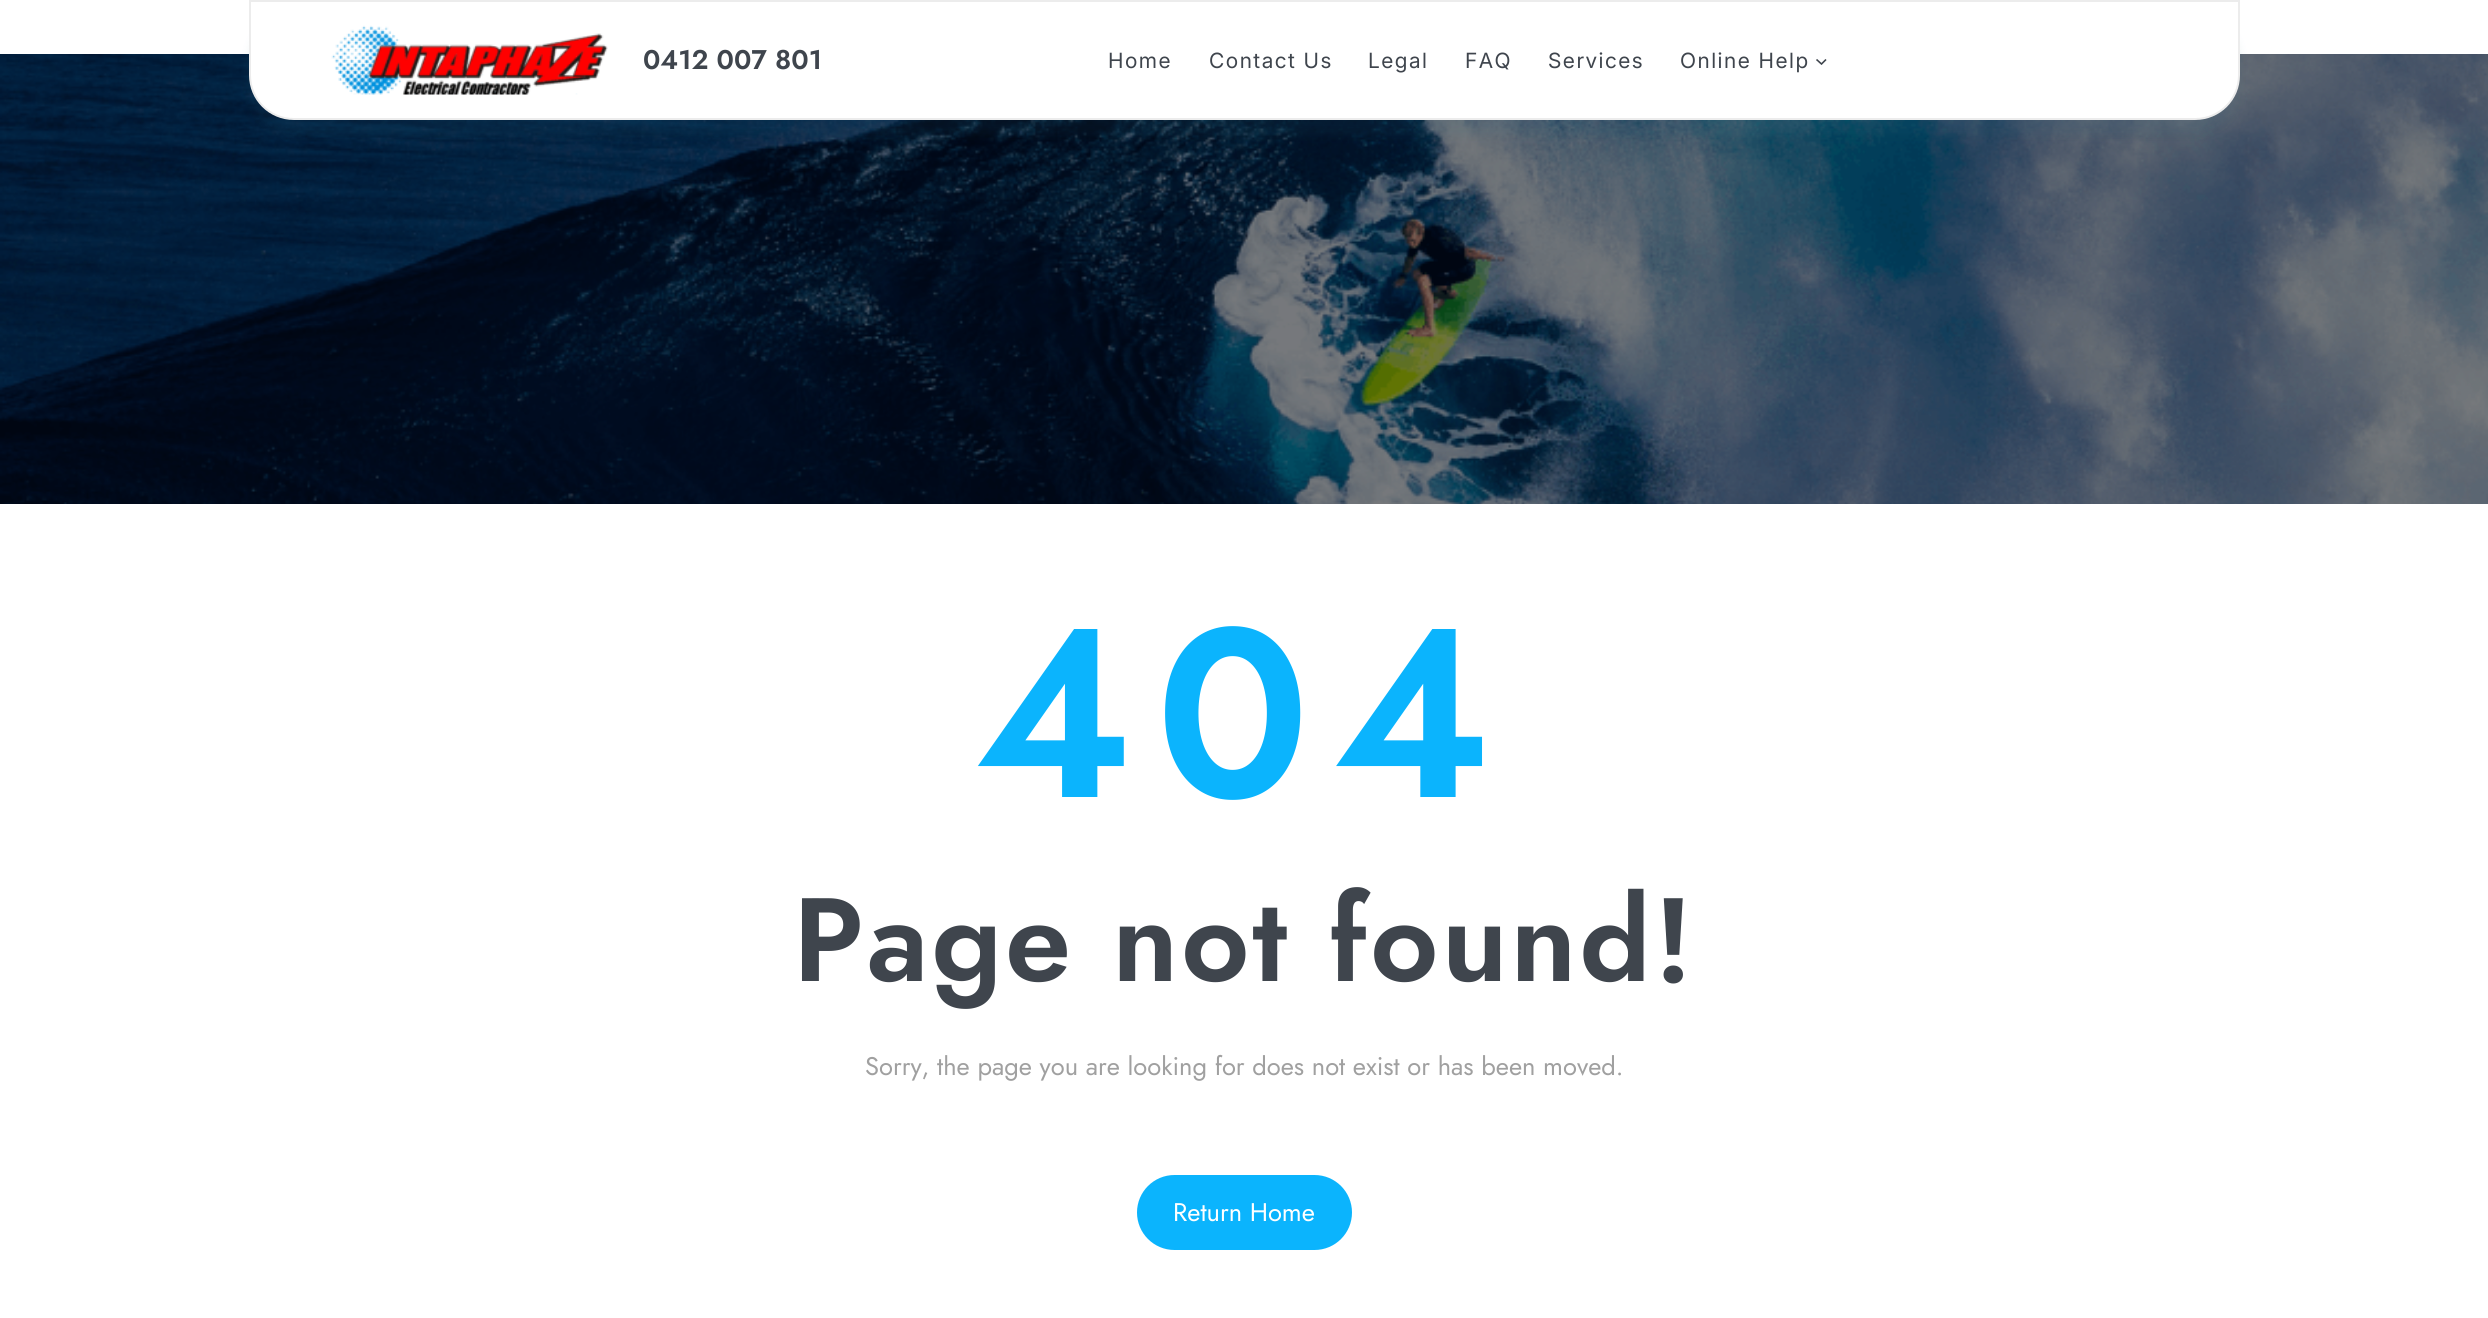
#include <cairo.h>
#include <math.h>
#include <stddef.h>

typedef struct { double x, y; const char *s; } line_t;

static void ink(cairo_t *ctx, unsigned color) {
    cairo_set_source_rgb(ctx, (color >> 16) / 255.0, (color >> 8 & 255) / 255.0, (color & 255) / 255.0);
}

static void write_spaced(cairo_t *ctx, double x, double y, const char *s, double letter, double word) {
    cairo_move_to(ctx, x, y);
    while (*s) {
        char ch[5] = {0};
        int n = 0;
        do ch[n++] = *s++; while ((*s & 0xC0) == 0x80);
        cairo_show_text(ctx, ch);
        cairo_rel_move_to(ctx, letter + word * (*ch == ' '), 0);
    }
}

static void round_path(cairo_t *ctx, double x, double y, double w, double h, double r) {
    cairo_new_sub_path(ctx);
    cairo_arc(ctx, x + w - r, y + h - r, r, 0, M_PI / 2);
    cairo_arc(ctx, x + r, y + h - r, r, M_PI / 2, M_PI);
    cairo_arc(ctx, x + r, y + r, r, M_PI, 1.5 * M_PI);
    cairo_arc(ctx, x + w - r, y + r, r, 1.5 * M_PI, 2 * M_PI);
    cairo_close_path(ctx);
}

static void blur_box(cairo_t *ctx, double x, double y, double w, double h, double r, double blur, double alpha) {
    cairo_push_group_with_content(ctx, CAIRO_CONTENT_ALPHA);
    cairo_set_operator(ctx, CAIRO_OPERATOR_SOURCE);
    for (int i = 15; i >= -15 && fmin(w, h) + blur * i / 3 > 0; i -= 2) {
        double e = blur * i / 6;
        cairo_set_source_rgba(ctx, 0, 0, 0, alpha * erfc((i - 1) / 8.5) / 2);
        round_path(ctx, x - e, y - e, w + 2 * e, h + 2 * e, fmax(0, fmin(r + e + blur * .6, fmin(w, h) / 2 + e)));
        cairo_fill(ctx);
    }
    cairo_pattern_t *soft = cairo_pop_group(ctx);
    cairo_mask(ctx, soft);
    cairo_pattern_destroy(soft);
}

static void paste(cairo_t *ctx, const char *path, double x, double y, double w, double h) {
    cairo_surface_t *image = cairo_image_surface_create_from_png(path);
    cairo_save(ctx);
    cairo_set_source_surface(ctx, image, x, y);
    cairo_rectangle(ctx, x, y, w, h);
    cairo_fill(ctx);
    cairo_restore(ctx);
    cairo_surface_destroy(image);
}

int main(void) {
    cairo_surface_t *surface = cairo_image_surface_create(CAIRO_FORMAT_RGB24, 2488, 1318);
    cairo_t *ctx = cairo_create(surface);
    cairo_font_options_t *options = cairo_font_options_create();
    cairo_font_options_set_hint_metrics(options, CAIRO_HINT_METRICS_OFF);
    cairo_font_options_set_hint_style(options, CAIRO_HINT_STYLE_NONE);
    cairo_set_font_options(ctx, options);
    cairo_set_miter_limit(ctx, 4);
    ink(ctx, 0xFFFFFF);
    cairo_paint(ctx);
    paste(ctx, "media/2.png", 0, 54, 2488, 450);
    ink(ctx, 0x296E8A);
    blur_box(ctx, 249, 15, 1991, 120, 45, 4.5, 0.1);
    ink(ctx, 0xFFFFFF);
    cairo_new_path(ctx);
    cairo_move_to(ctx, 250, 1);
    cairo_line_to(ctx, 2239, 1);
    cairo_line_to(ctx, 2239, 75);
    cairo_curve_to(ctx, 2239, 99.5, 2219.5, 119, 2195, 119);
    cairo_line_to(ctx, 294, 119);
    cairo_curve_to(ctx, 269.5, 119, 250, 99.5, 250, 75);
    cairo_close_path(ctx);
    cairo_fill_preserve(ctx);
    ink(ctx, 0xECECEC);
    cairo_stroke(ctx);
    paste(ctx, "media/1.png", 331, 25, 277, 70);
    cairo_select_font_face(ctx, "Jost SemiBold", CAIRO_FONT_SLANT_NORMAL, CAIRO_FONT_WEIGHT_NORMAL);
    cairo_set_font_size(ctx, 27);
    ink(ctx, 0x3F454D);
    cairo_move_to(ctx, 643, 69);
    cairo_show_text(ctx, "0412 007 801");
    cairo_select_font_face(ctx, "Inter", CAIRO_FONT_SLANT_NORMAL, CAIRO_FONT_WEIGHT_NORMAL);
    cairo_set_font_size(ctx, 21);
    {
        static const line_t items[] = {
            {1108, 68, "Home"},
            {1209, 68, "Contact Us"},
            {1368, 68, "Legal"},
            {1465, 68, "FAQ"},
            {1548, 68, "Services"},
            {1680, 68, "Online Help"},
        };
        for (size_t i = 0; i < sizeof items / sizeof *items; i++) {
            write_spaced(ctx, items[i].x, items[i].y, items[i].s, 1.5, 0);
        }
    }
    cairo_new_path(ctx);
    cairo_move_to(ctx, 1816.5, 59.5);
    cairo_line_to(ctx, 1821.5, 64);
    cairo_line_to(ctx, 1826, 59.5);
    cairo_set_line_width(ctx, 1.6);
    cairo_stroke(ctx);
    cairo_select_font_face(ctx, "Jost SemiBold", CAIRO_FONT_SLANT_NORMAL, CAIRO_FONT_WEIGHT_NORMAL);
    cairo_set_font_size(ctx, 240);
    ink(ctx, 0x0BB4FD);
    write_spaced(ctx, 974, 797, "404", 22.5, 0);
    cairo_set_font_size(ctx, 118.25);
    ink(ctx, 0x3F454D);
    write_spaced(ctx, 793, 981, "Page not found!", 3, 0);
    cairo_select_font_face(ctx, "Jost", CAIRO_FONT_SLANT_NORMAL, CAIRO_FONT_WEIGHT_NORMAL);
    cairo_set_font_size(ctx, 25.5);
    ink(ctx, 0xA0A0A0);
    cairo_move_to(ctx, 865, 1075);
    cairo_show_text(ctx, "Sorry, the page you are looking for does not exist or has been moved.");
    ink(ctx, 0x0BB4FD);
    round_path(ctx, 1137, 1175, 215, 75, 37.5);
    cairo_fill(ctx);
    ink(ctx, 0xFFFFFF);
    cairo_move_to(ctx, 1173, 1221);
    cairo_show_text(ctx, "Return Home");
    cairo_surface_write_to_png(surface, "image.png");
    cairo_font_options_destroy(options);
    cairo_destroy(ctx);
    cairo_surface_destroy(surface);
    return 0;
}
